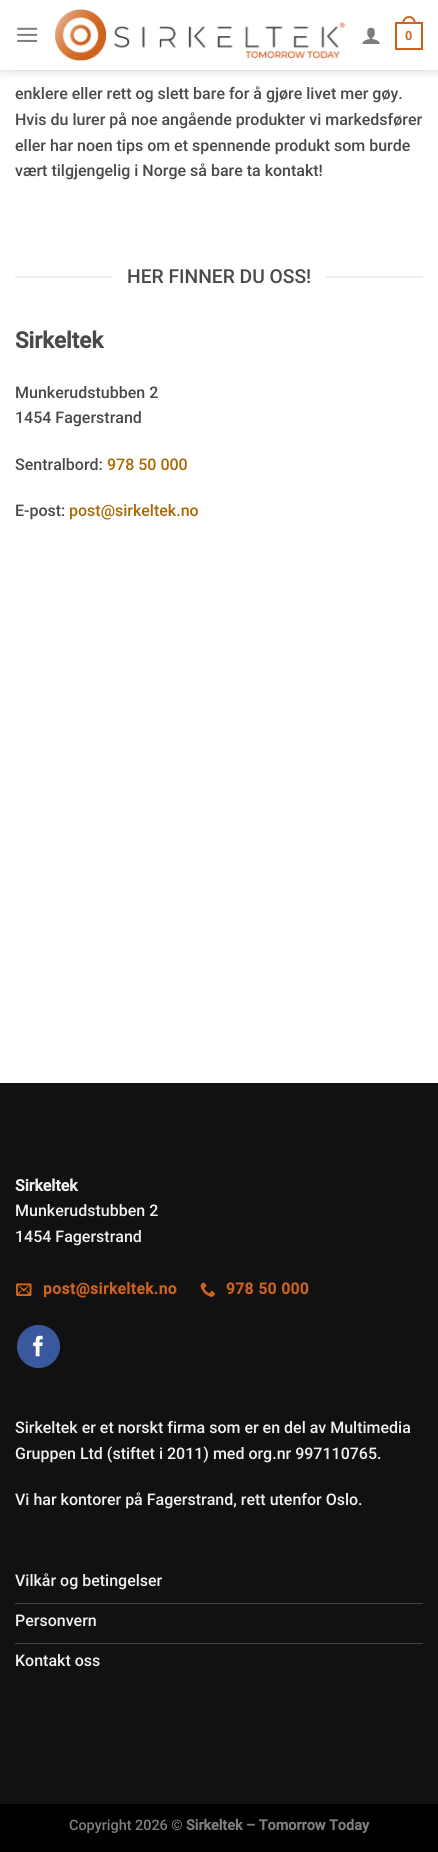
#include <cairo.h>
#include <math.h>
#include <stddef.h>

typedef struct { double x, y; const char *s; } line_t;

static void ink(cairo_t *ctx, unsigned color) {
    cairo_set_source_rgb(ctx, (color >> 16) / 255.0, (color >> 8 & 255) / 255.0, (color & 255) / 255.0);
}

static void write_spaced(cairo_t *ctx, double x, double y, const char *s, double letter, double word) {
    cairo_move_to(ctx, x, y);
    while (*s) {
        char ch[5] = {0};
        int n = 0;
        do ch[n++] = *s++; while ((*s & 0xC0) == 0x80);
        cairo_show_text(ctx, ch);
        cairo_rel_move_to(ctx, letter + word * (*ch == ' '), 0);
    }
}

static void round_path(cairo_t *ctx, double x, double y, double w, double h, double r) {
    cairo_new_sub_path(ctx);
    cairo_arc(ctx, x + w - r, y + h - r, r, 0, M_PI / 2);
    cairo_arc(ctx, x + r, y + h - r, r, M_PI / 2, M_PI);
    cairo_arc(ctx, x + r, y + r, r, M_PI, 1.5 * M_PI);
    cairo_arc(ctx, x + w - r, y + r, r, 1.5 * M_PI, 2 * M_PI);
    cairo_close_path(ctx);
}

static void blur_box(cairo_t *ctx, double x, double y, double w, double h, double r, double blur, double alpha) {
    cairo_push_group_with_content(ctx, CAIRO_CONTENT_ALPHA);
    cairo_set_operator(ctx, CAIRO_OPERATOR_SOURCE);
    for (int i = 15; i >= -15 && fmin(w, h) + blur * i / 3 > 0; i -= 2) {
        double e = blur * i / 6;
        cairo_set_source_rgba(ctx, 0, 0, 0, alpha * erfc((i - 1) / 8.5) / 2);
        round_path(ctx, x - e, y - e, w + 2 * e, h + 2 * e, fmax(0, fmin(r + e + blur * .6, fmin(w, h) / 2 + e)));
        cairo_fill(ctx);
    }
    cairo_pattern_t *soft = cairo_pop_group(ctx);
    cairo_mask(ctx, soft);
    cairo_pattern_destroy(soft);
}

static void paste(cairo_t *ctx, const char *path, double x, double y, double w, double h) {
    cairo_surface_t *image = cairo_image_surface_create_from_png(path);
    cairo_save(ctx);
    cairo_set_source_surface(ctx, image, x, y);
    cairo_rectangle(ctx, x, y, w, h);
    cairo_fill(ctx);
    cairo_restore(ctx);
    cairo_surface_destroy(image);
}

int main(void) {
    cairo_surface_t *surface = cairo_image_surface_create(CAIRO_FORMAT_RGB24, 438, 1852);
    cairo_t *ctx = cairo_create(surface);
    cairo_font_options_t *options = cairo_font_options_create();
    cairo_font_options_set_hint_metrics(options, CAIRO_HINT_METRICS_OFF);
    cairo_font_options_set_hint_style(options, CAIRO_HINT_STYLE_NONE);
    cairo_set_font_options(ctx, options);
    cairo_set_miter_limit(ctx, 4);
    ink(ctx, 0xFFFFFF);
    cairo_paint(ctx);
    ink(ctx, 0x000000);
    blur_box(ctx, 1, 1, 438, 70, 0, 5, 0.15);
    ink(ctx, 0xFFFFFF);
    cairo_rectangle(ctx, 0, 0, 438, 70);
    cairo_fill(ctx);
    paste(ctx, "media/1.png", 17, 27, 21, 15);
    paste(ctx, "media/2.png", 55, 9, 291, 52);
    paste(ctx, "media/3.png", 362, 27, 18, 17);
    cairo_rectangle(ctx, 396, 23, 26, 26);
    ink(ctx, 0xCF631C);
    cairo_stroke(ctx);
    cairo_set_fill_rule(ctx, CAIRO_FILL_RULE_EVEN_ODD);
    cairo_new_path(ctx);
    cairo_move_to(ctx, 409, 16);
    cairo_curve_to(ctx, 413.5, 16, 416, 20, 416, 24);
    cairo_line_to(ctx, 402, 24);
    cairo_curve_to(ctx, 402, 20, 404.5, 16, 409, 16);
    cairo_close_path(ctx);
    cairo_move_to(ctx, 409, 18);
    cairo_curve_to(ctx, 412.5, 18, 414, 21, 414, 24);
    cairo_line_to(ctx, 404, 24);
    cairo_curve_to(ctx, 404, 21, 405.5, 18, 409, 18);
    cairo_close_path(ctx);
    cairo_fill(ctx);
    cairo_select_font_face(ctx, "Liberation Sans", CAIRO_FONT_SLANT_NORMAL, CAIRO_FONT_WEIGHT_BOLD);
    cairo_set_font_size(ctx, 13);
    cairo_move_to(ctx, 405, 40);
    cairo_show_text(ctx, "0");
    cairo_set_source_rgba(ctx, 0.286, 0.286, 0.286, 0.1);
    cairo_rectangle(ctx, 15, 70, 408, 1);
    cairo_fill(ctx);
    cairo_select_font_face(ctx, "Roboto Medium", CAIRO_FONT_SLANT_NORMAL, CAIRO_FONT_WEIGHT_NORMAL);
    cairo_set_font_size(ctx, 16);
    ink(ctx, 0x494949);
    {
        static const line_t items[] = {
            {15, 99, "enklere eller rett og slett bare for å gjøre livet mer gøy."},
            {15, 125, "Hvis du lurer på noe angående produkter vi markedsfører"},
            {15, 151, "eller har noen tips om et spennende produkt som burde"},
            {15, 176, "vært tilgjengelig i Norge så bare ta kontakt!"},
        };
        for (size_t i = 0; i < sizeof items / sizeof *items; i++) {
            cairo_move_to(ctx, items[i].x, items[i].y);
            cairo_show_text(ctx, items[i].s);
        }
    }
    ink(ctx, 0xEDEDED);
    cairo_rectangle(ctx, 15, 276, 97, 2);
    cairo_fill(ctx);
    cairo_set_font_size(ctx, 19.25);
    ink(ctx, 0x494949);
    cairo_move_to(ctx, 127, 283);
    cairo_show_text(ctx, "HER FINNER DU OSS!");
    ink(ctx, 0xEDEDED);
    cairo_rectangle(ctx, 326, 276, 97, 2);
    cairo_fill(ctx);
    cairo_select_font_face(ctx, "Roboto", CAIRO_FONT_SLANT_NORMAL, CAIRO_FONT_WEIGHT_BOLD);
    cairo_set_font_size(ctx, 22.5);
    ink(ctx, 0x494949);
    cairo_move_to(ctx, 15, 348);
    cairo_show_text(ctx, "Sirkeltek");
    cairo_select_font_face(ctx, "Roboto Medium", CAIRO_FONT_SLANT_NORMAL, CAIRO_FONT_WEIGHT_NORMAL);
    cairo_set_font_size(ctx, 16);
    {
        static const line_t items[] = {
            {15, 398, "Munkerudstubben 2"},
            {15, 423, "1454 Fagerstrand"},
            {15, 470, "Sentralbord:"},
        };
        for (size_t i = 0; i < sizeof items / sizeof *items; i++) {
            cairo_move_to(ctx, items[i].x, items[i].y);
            cairo_show_text(ctx, items[i].s);
        }
    }
    ink(ctx, 0xAA6702);
    cairo_move_to(ctx, 107, 470);
    cairo_show_text(ctx, "978 50 000");
    ink(ctx, 0x494949);
    cairo_move_to(ctx, 15, 516);
    cairo_show_text(ctx, "E-post:");
    ink(ctx, 0xAA6702);
    cairo_move_to(ctx, 69, 516);
    cairo_show_text(ctx, "post@sirkeltek.no");
    ink(ctx, 0x111111);
    cairo_rectangle(ctx, 0, 1083, 438, 721);
    cairo_fill(ctx);
    cairo_select_font_face(ctx, "Roboto", CAIRO_FONT_SLANT_NORMAL, CAIRO_FONT_WEIGHT_BOLD);
    ink(ctx, 0xF1F1F1);
    cairo_move_to(ctx, 15, 1191);
    cairo_show_text(ctx, "Sirkeltek");
    cairo_select_font_face(ctx, "Roboto Medium", CAIRO_FONT_SLANT_NORMAL, CAIRO_FONT_WEIGHT_NORMAL);
    cairo_move_to(ctx, 15, 1216);
    cairo_show_text(ctx, "Munkerudstubben 2");
    cairo_move_to(ctx, 15, 1242);
    cairo_show_text(ctx, "1454 Fagerstrand");
    paste(ctx, "media/4.png", 16, 1283, 16, 13);
    cairo_select_font_face(ctx, "Roboto", CAIRO_FONT_SLANT_NORMAL, CAIRO_FONT_WEIGHT_BOLD);
    cairo_set_font_size(ctx, 15.5);
    ink(ctx, 0xCF631C);
    write_spaced(ctx, 43, 1294, "post@sirkeltek.no", 0.5, 0);
    paste(ctx, "media/5.png", 200, 1282, 15, 15);
    write_spaced(ctx, 226, 1294, "978 50 000", 0.5, 0);
    ink(ctx, 0x3A589D);
    cairo_new_path(ctx);
    cairo_arc(ctx, 38.5, 1346.5, 21, 0, 2 * M_PI);
    cairo_fill_preserve(ctx);
    cairo_set_line_width(ctx, 1);
    cairo_stroke(ctx);
    paste(ctx, "media/6.png", 33, 1335, 10, 22);
    cairo_select_font_face(ctx, "Roboto Medium", CAIRO_FONT_SLANT_NORMAL, CAIRO_FONT_WEIGHT_NORMAL);
    cairo_set_font_size(ctx, 16);
    ink(ctx, 0xF1F1F1);
    {
        static const line_t items[] = {
            {15, 1433, "Sirkeltek er et norskt firma som er en del av Multimedia"},
            {15, 1459, "Gruppen Ltd (stiftet i 2011) med org.nr 997110765."},
            {15, 1505, "Vi har kontorer på Fagerstrand, rett utenfor Oslo."},
        };
        for (size_t i = 0; i < sizeof items / sizeof *items; i++) {
            cairo_move_to(ctx, items[i].x, items[i].y);
            cairo_show_text(ctx, items[i].s);
        }
    }
    ink(ctx, 0x414141);
    cairo_rectangle(ctx, 15, 1603, 408, 1);
    cairo_fill(ctx);
    ink(ctx, 0xF1F1F1);
    cairo_move_to(ctx, 15, 1586);
    cairo_show_text(ctx, "Vilkår og betingelser");
    ink(ctx, 0x414141);
    cairo_rectangle(ctx, 15, 1643, 408, 1);
    cairo_fill(ctx);
    ink(ctx, 0xF1F1F1);
    cairo_move_to(ctx, 15, 1626);
    cairo_show_text(ctx, "Personvern");
    cairo_move_to(ctx, 15, 1666);
    cairo_show_text(ctx, "Kontakt oss");
    ink(ctx, 0x000000);
    cairo_rectangle(ctx, 0, 1804, 438, 48);
    cairo_fill(ctx);
    cairo_set_font_size(ctx, 14.4);
    ink(ctx, 0x808080);
    cairo_move_to(ctx, 69, 1830);
    cairo_show_text(ctx, "Copyright 2026 ©");
    cairo_select_font_face(ctx, "Roboto", CAIRO_FONT_SLANT_NORMAL, CAIRO_FONT_WEIGHT_BOLD);
    cairo_move_to(ctx, 186, 1830);
    cairo_show_text(ctx, "Sirkeltek – Tomorrow Today");
    cairo_surface_write_to_png(surface, "image.png");
    cairo_font_options_destroy(options);
    cairo_destroy(ctx);
    cairo_surface_destroy(surface);
    return 0;
}
